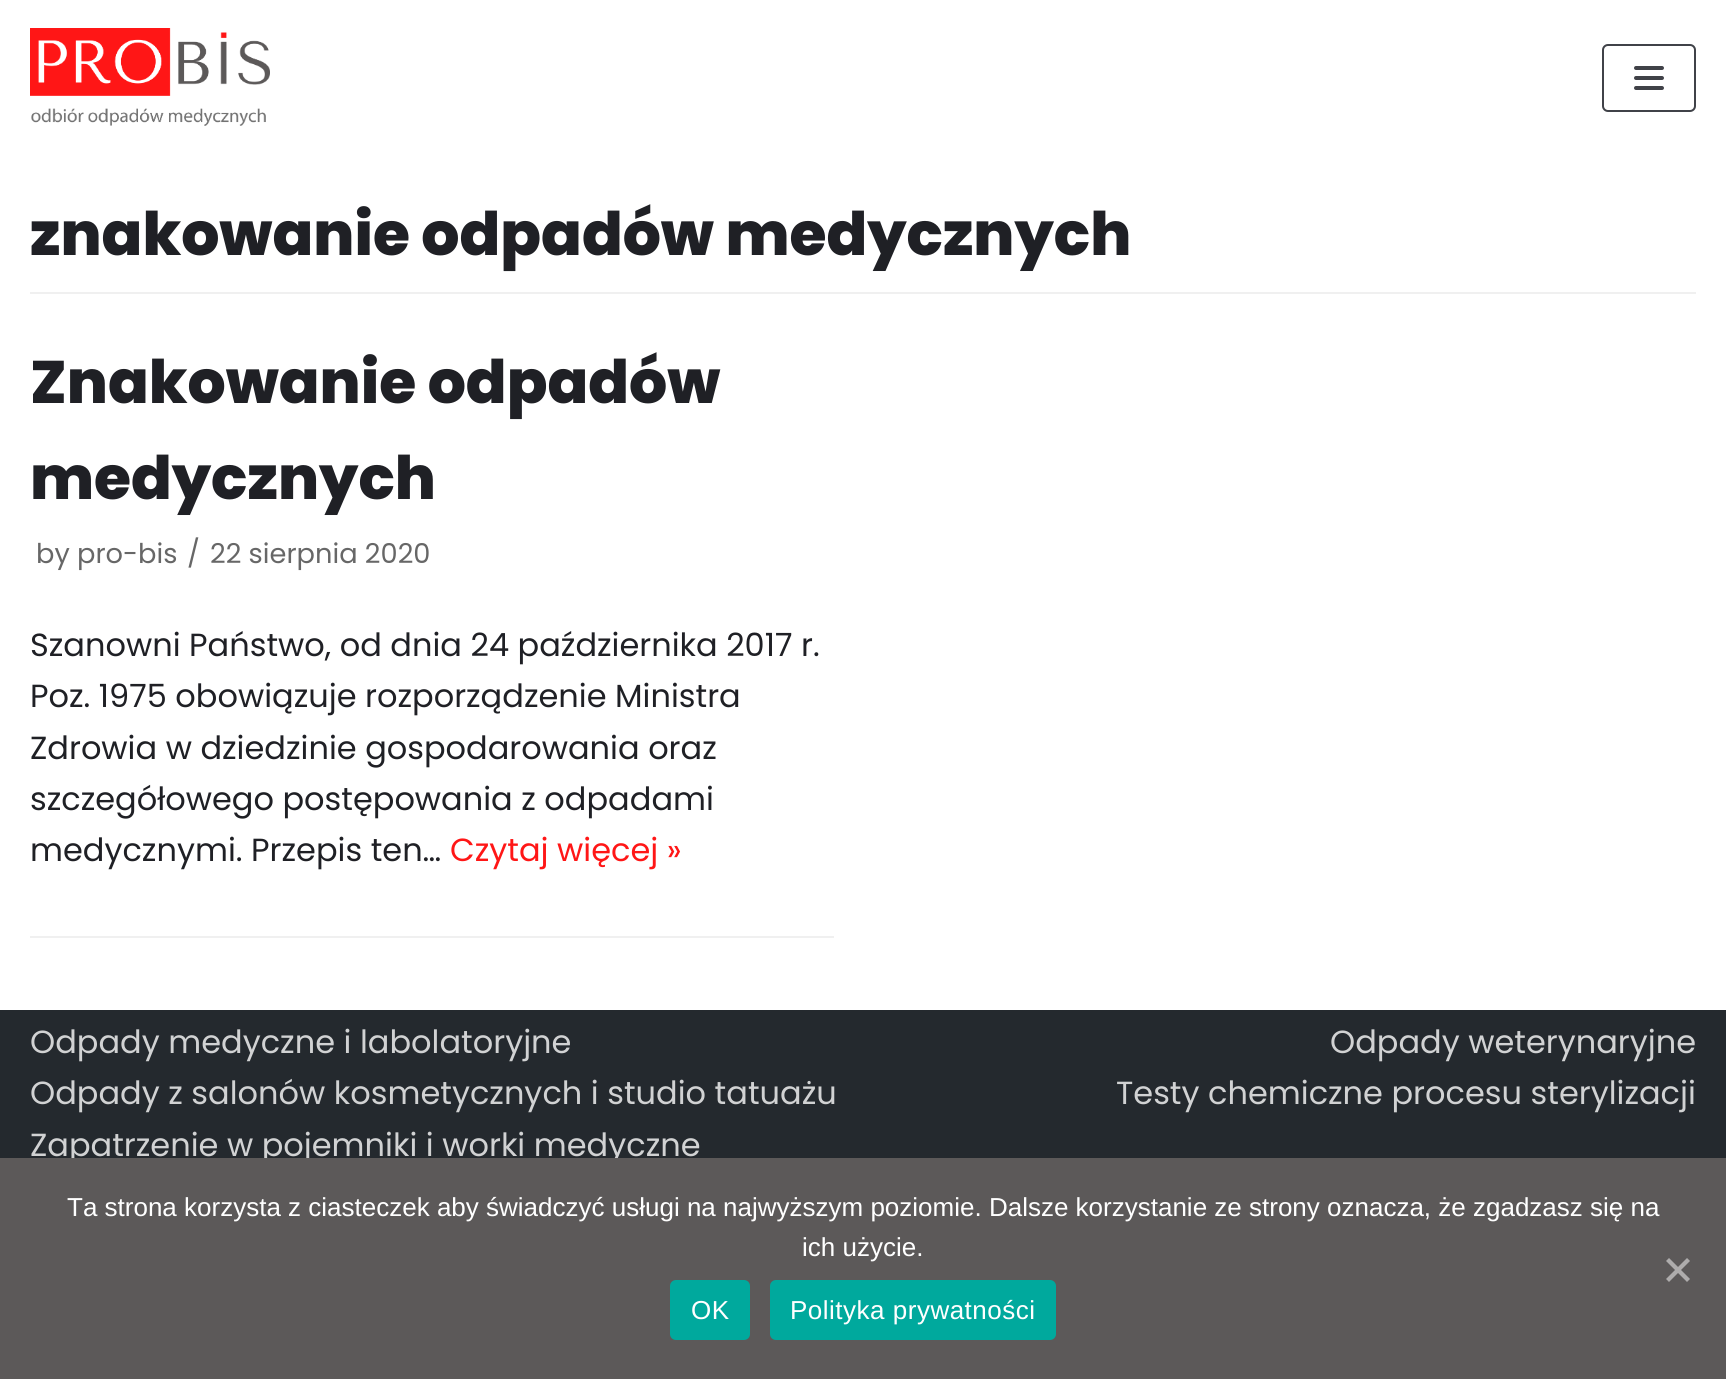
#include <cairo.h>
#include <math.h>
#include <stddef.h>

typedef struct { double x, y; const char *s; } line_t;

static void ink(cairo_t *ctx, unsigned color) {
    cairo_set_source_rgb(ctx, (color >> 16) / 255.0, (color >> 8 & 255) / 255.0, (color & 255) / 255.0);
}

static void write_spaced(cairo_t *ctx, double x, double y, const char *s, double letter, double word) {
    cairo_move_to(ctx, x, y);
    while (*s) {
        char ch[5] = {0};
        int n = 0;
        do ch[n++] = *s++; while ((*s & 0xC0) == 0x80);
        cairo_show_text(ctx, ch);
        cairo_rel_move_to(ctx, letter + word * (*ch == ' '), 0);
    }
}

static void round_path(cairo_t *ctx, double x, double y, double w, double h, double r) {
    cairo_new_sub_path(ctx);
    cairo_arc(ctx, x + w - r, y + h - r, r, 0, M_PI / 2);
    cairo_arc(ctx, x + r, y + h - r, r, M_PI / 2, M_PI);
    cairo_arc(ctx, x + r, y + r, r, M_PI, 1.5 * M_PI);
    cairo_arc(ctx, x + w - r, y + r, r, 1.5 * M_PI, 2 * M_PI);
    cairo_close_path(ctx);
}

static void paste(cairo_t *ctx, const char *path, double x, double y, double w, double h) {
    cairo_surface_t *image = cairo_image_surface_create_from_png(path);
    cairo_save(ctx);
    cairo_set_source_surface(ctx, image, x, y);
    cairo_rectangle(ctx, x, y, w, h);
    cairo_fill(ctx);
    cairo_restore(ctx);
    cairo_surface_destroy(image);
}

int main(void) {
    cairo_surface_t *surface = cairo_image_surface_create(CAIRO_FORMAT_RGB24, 1726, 1379);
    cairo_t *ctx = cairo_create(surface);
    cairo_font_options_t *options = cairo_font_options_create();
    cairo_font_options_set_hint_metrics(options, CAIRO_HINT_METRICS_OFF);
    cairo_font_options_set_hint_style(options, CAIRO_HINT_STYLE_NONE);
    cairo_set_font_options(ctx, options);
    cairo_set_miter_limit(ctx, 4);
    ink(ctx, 0xFFFFFF);
    cairo_paint(ctx);
    paste(ctx, "media/1.png", 30, 28, 240, 98);
    round_path(ctx, 1603, 45, 92, 66, 5);
    ink(ctx, 0x404248);
    cairo_stroke(ctx);
    round_path(ctx, 1634, 66, 30, 4, 2);
    cairo_fill(ctx);
    round_path(ctx, 1634, 76, 30, 4, 2);
    cairo_fill(ctx);
    round_path(ctx, 1634, 86, 30, 4, 2);
    cairo_fill(ctx);
    ink(ctx, 0xF0F0F0);
    cairo_rectangle(ctx, 30, 292, 1666, 2);
    cairo_fill(ctx);
    cairo_select_font_face(ctx, "Poppins ExtraBold", CAIRO_FONT_SLANT_NORMAL, CAIRO_FONT_WEIGHT_NORMAL);
    cairo_set_font_size(ctx, 60);
    ink(ctx, 0x1F2025);
    cairo_move_to(ctx, 30, 255);
    cairo_show_text(ctx, "znakowanie odpadów medycznych");
    ink(ctx, 0xF0F0F0);
    cairo_rectangle(ctx, 30, 936, 804, 2);
    cairo_fill(ctx);
    ink(ctx, 0x1F2025);
    cairo_move_to(ctx, 30, 403);
    cairo_show_text(ctx, "Znakowanie odpadów");
    cairo_move_to(ctx, 30, 499);
    cairo_show_text(ctx, "medycznych");
    cairo_select_font_face(ctx, "Poppins", CAIRO_FONT_SLANT_NORMAL, CAIRO_FONT_WEIGHT_NORMAL);
    cairo_set_font_size(ctx, 27.25);
    ink(ctx, 0x676767);
    {
        static const line_t items[] = {
            {36, 563, "by pro-bis"},
            {187, 563, "/"},
            {210, 563, "22 sierpnia 2020"},
        };
        for (size_t i = 0; i < sizeof items / sizeof *items; i++) {
            cairo_move_to(ctx, items[i].x, items[i].y);
            cairo_show_text(ctx, items[i].s);
        }
    }
    cairo_set_font_size(ctx, 32);
    ink(ctx, 0x1F2025);
    {
        static const line_t items[] = {
            {30, 656, "Szanowni Państwo, od dnia 24 października 2017 r."},
            {30, 707, "Poz. 1975 obowiązuje rozporządzenie Ministra"},
            {30, 759, "Zdrowia w dziedzinie gospodarowania oraz"},
            {30, 810, "szczegółowego postępowania z odpadami"},
            {30, 861, "medycznymi. Przepis ten…"},
        };
        for (size_t i = 0; i < sizeof items / sizeof *items; i++) {
            cairo_move_to(ctx, items[i].x, items[i].y);
            cairo_show_text(ctx, items[i].s);
        }
    }
    ink(ctx, 0xFF1616);
    cairo_move_to(ctx, 450, 861);
    cairo_show_text(ctx, "Czytaj więcej »");
    ink(ctx, 0x24292E);
    cairo_rectangle(ctx, 0, 1010, 1726, 148);
    cairo_fill(ctx);
    ink(ctx, 0xD1D2D3);
    {
        static const line_t items[] = {
            {30, 1053, "Odpady medyczne i labolatoryjne"},
            {1330, 1053, "Odpady weterynaryjne"},
            {30, 1104, "Odpady z salonów kosmetycznych i studio tatuażu"},
            {1116, 1104, "Testy chemiczne procesu sterylizacji"},
            {30, 1156, "Zapatrzenie w pojemniki i worki medyczne"},
        };
        for (size_t i = 0; i < sizeof items / sizeof *items; i++) {
            cairo_move_to(ctx, items[i].x, items[i].y);
            cairo_show_text(ctx, items[i].s);
        }
    }
    ink(ctx, 0x5C5959);
    cairo_rectangle(ctx, 0, 1158, 1726, 221);
    cairo_fill(ctx);
    cairo_select_font_face(ctx, "Liberation Sans", CAIRO_FONT_SLANT_NORMAL, CAIRO_FONT_WEIGHT_NORMAL);
    cairo_set_font_size(ctx, 26);
    ink(ctx, 0xFFFFFF);
    cairo_move_to(ctx, 67, 1216);
    cairo_show_text(ctx, "Ta strona korzysta z ciasteczek aby świadczyć usługi na najwyższym poziomie. Dalsze korzystanie ze strony oznacza, że zgadzasz się na");
    cairo_move_to(ctx, 802, 1256);
    cairo_show_text(ctx, "ich użycie.");
    ink(ctx, 0xAEACAC);
    cairo_new_path(ctx);
    cairo_move_to(ctx, 1687, 1258);
    cairo_line_to(ctx, 1690, 1261);
    cairo_line_to(ctx, 1669, 1282);
    cairo_line_to(ctx, 1666, 1279);
    cairo_close_path(ctx);
    cairo_fill(ctx);
    cairo_new_path(ctx);
    cairo_move_to(ctx, 1666, 1261);
    cairo_line_to(ctx, 1669, 1258);
    cairo_line_to(ctx, 1690, 1279);
    cairo_line_to(ctx, 1687, 1282);
    cairo_close_path(ctx);
    cairo_fill(ctx);
    ink(ctx, 0x00A99D);
    round_path(ctx, 670, 1280, 80, 60, 6);
    cairo_fill(ctx);
    ink(ctx, 0xFFFFFF);
    write_spaced(ctx, 691, 1319, "OK", 0.5, 0);
    ink(ctx, 0x00A99D);
    round_path(ctx, 770, 1280, 286, 60, 6);
    cairo_fill(ctx);
    ink(ctx, 0xFFFFFF);
    write_spaced(ctx, 790, 1319, "Polityka prywatności", 0.5, 0);
    cairo_surface_write_to_png(surface, "image.png");
    cairo_font_options_destroy(options);
    cairo_destroy(ctx);
    cairo_surface_destroy(surface);
    return 0;
}
